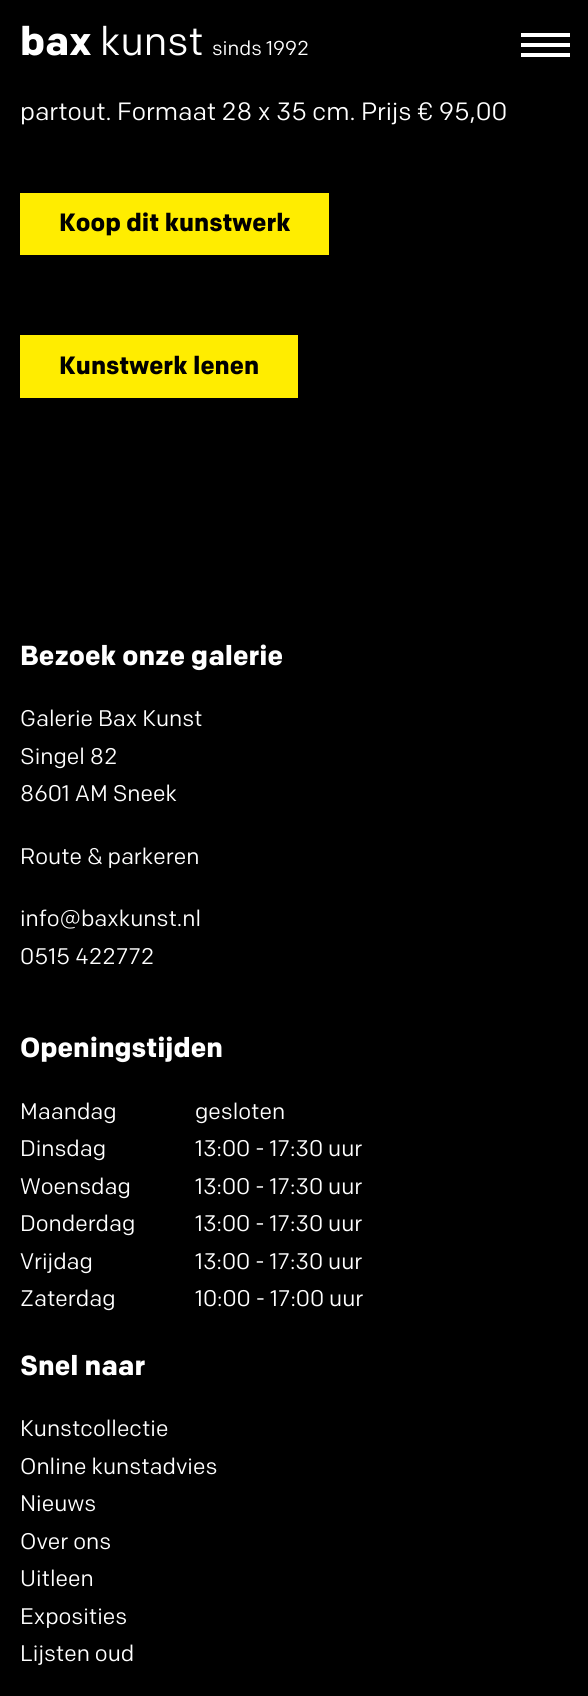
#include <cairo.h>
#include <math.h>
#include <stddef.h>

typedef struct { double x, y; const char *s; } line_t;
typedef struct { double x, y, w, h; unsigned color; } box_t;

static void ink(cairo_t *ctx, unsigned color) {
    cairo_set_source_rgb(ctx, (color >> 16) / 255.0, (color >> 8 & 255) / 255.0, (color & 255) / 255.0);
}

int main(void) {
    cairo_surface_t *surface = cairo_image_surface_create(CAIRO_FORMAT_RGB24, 588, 1696);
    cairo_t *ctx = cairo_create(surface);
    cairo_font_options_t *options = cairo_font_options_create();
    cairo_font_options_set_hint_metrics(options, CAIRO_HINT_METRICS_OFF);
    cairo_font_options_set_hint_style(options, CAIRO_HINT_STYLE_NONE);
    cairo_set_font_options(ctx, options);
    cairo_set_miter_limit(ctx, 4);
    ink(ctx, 0x000000);
    cairo_paint(ctx);
    cairo_select_font_face(ctx, "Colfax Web", CAIRO_FONT_SLANT_NORMAL, CAIRO_FONT_WEIGHT_BOLD);
    cairo_set_font_size(ctx, 40);
    ink(ctx, 0xFFFFFF);
    cairo_move_to(ctx, 20, 55);
    cairo_show_text(ctx, "bax");
    cairo_select_font_face(ctx, "Colfax Web", CAIRO_FONT_SLANT_NORMAL, CAIRO_FONT_WEIGHT_NORMAL);
    cairo_move_to(ctx, 100, 55);
    cairo_show_text(ctx, "kunst");
    cairo_set_font_size(ctx, 20);
    cairo_move_to(ctx, 212, 55);
    cairo_show_text(ctx, "sinds 1992");
    {
        static const box_t items[] = {
            {521, 43, 49, 4, 0xFFFFFF},
            {521, 33, 49, 4, 0xFFFFFF},
            {521, 53, 49, 4, 0xFFFFFF},
        };
        for (size_t i = 0; i < sizeof items / sizeof *items; i++) {
            ink(ctx, items[i].color);
            cairo_rectangle(ctx, items[i].x, items[i].y, items[i].w, items[i].h);
            cairo_fill(ctx);
        }
    }
    cairo_set_font_size(ctx, 25);
    cairo_move_to(ctx, 20, 120);
    cairo_show_text(ctx, "partout. Formaat 28 x 35 cm. Prijs € 95,00");
    ink(ctx, 0xFFED00);
    cairo_rectangle(ctx, 20, 193, 309, 62);
    cairo_fill(ctx);
    cairo_select_font_face(ctx, "Colfax Web", CAIRO_FONT_SLANT_NORMAL, CAIRO_FONT_WEIGHT_BOLD);
    ink(ctx, 0x000000);
    cairo_move_to(ctx, 59, 231);
    cairo_show_text(ctx, "Koop dit kunstwerk");
    ink(ctx, 0xFFED00);
    cairo_rectangle(ctx, 20, 335, 278, 63);
    cairo_fill(ctx);
    ink(ctx, 0x000000);
    cairo_move_to(ctx, 59, 374);
    cairo_show_text(ctx, "Kunstwerk lenen");
    cairo_set_font_size(ctx, 27.5);
    ink(ctx, 0xFFFFFF);
    cairo_move_to(ctx, 20, 665);
    cairo_show_text(ctx, "Bezoek onze galerie");
    cairo_select_font_face(ctx, "Colfax Web", CAIRO_FONT_SLANT_NORMAL, CAIRO_FONT_WEIGHT_NORMAL);
    cairo_set_font_size(ctx, 22.5);
    {
        static const line_t items[] = {
            {20, 726, "Galerie Bax Kunst"},
            {20, 764, "Singel 82"},
            {20, 801, "8601 AM Sneek"},
            {20, 864, "Route & parkeren"},
            {20, 926, "info@baxkunst.nl"},
            {20, 964, "0515 422772"},
        };
        for (size_t i = 0; i < sizeof items / sizeof *items; i++) {
            cairo_move_to(ctx, items[i].x, items[i].y);
            cairo_show_text(ctx, items[i].s);
        }
    }
    cairo_select_font_face(ctx, "Colfax Web", CAIRO_FONT_SLANT_NORMAL, CAIRO_FONT_WEIGHT_BOLD);
    cairo_set_font_size(ctx, 27.5);
    cairo_move_to(ctx, 20, 1057);
    cairo_show_text(ctx, "Openingstijden");
    cairo_select_font_face(ctx, "Colfax Web", CAIRO_FONT_SLANT_NORMAL, CAIRO_FONT_WEIGHT_NORMAL);
    cairo_set_font_size(ctx, 22.5);
    {
        static const line_t items[] = {
            {20, 1119, "Maandag"},
            {195, 1119, "gesloten"},
            {20, 1156, "Dinsdag"},
            {195, 1156, "13:00 - 17:30 uur"},
            {20, 1194, "Woensdag"},
            {195, 1194, "13:00 - 17:30 uur"},
            {20, 1231, "Donderdag"},
            {195, 1231, "13:00 - 17:30 uur"},
            {20, 1269, "Vrijdag"},
            {195, 1269, "13:00 - 17:30 uur"},
            {20, 1306, "Zaterdag"},
            {195, 1306, "10:00 - 17:00 uur"},
        };
        for (size_t i = 0; i < sizeof items / sizeof *items; i++) {
            cairo_move_to(ctx, items[i].x, items[i].y);
            cairo_show_text(ctx, items[i].s);
        }
    }
    cairo_select_font_face(ctx, "Colfax Web", CAIRO_FONT_SLANT_NORMAL, CAIRO_FONT_WEIGHT_BOLD);
    cairo_set_font_size(ctx, 27.5);
    cairo_move_to(ctx, 20, 1375);
    cairo_show_text(ctx, "Snel naar");
    cairo_select_font_face(ctx, "Colfax Web", CAIRO_FONT_SLANT_NORMAL, CAIRO_FONT_WEIGHT_NORMAL);
    cairo_set_font_size(ctx, 22.5);
    {
        static const line_t items[] = {
            {20, 1436, "Kunstcollectie"},
            {20, 1474, "Online kunstadvies"},
            {20, 1511, "Nieuws"},
            {20, 1549, "Over ons"},
            {20, 1586, "Uitleen"},
            {20, 1624, "Exposities"},
            {20, 1661, "Lijsten oud"},
        };
        for (size_t i = 0; i < sizeof items / sizeof *items; i++) {
            cairo_move_to(ctx, items[i].x, items[i].y);
            cairo_show_text(ctx, items[i].s);
        }
    }
    cairo_surface_write_to_png(surface, "image.png");
    cairo_font_options_destroy(options);
    cairo_destroy(ctx);
    cairo_surface_destroy(surface);
    return 0;
}
